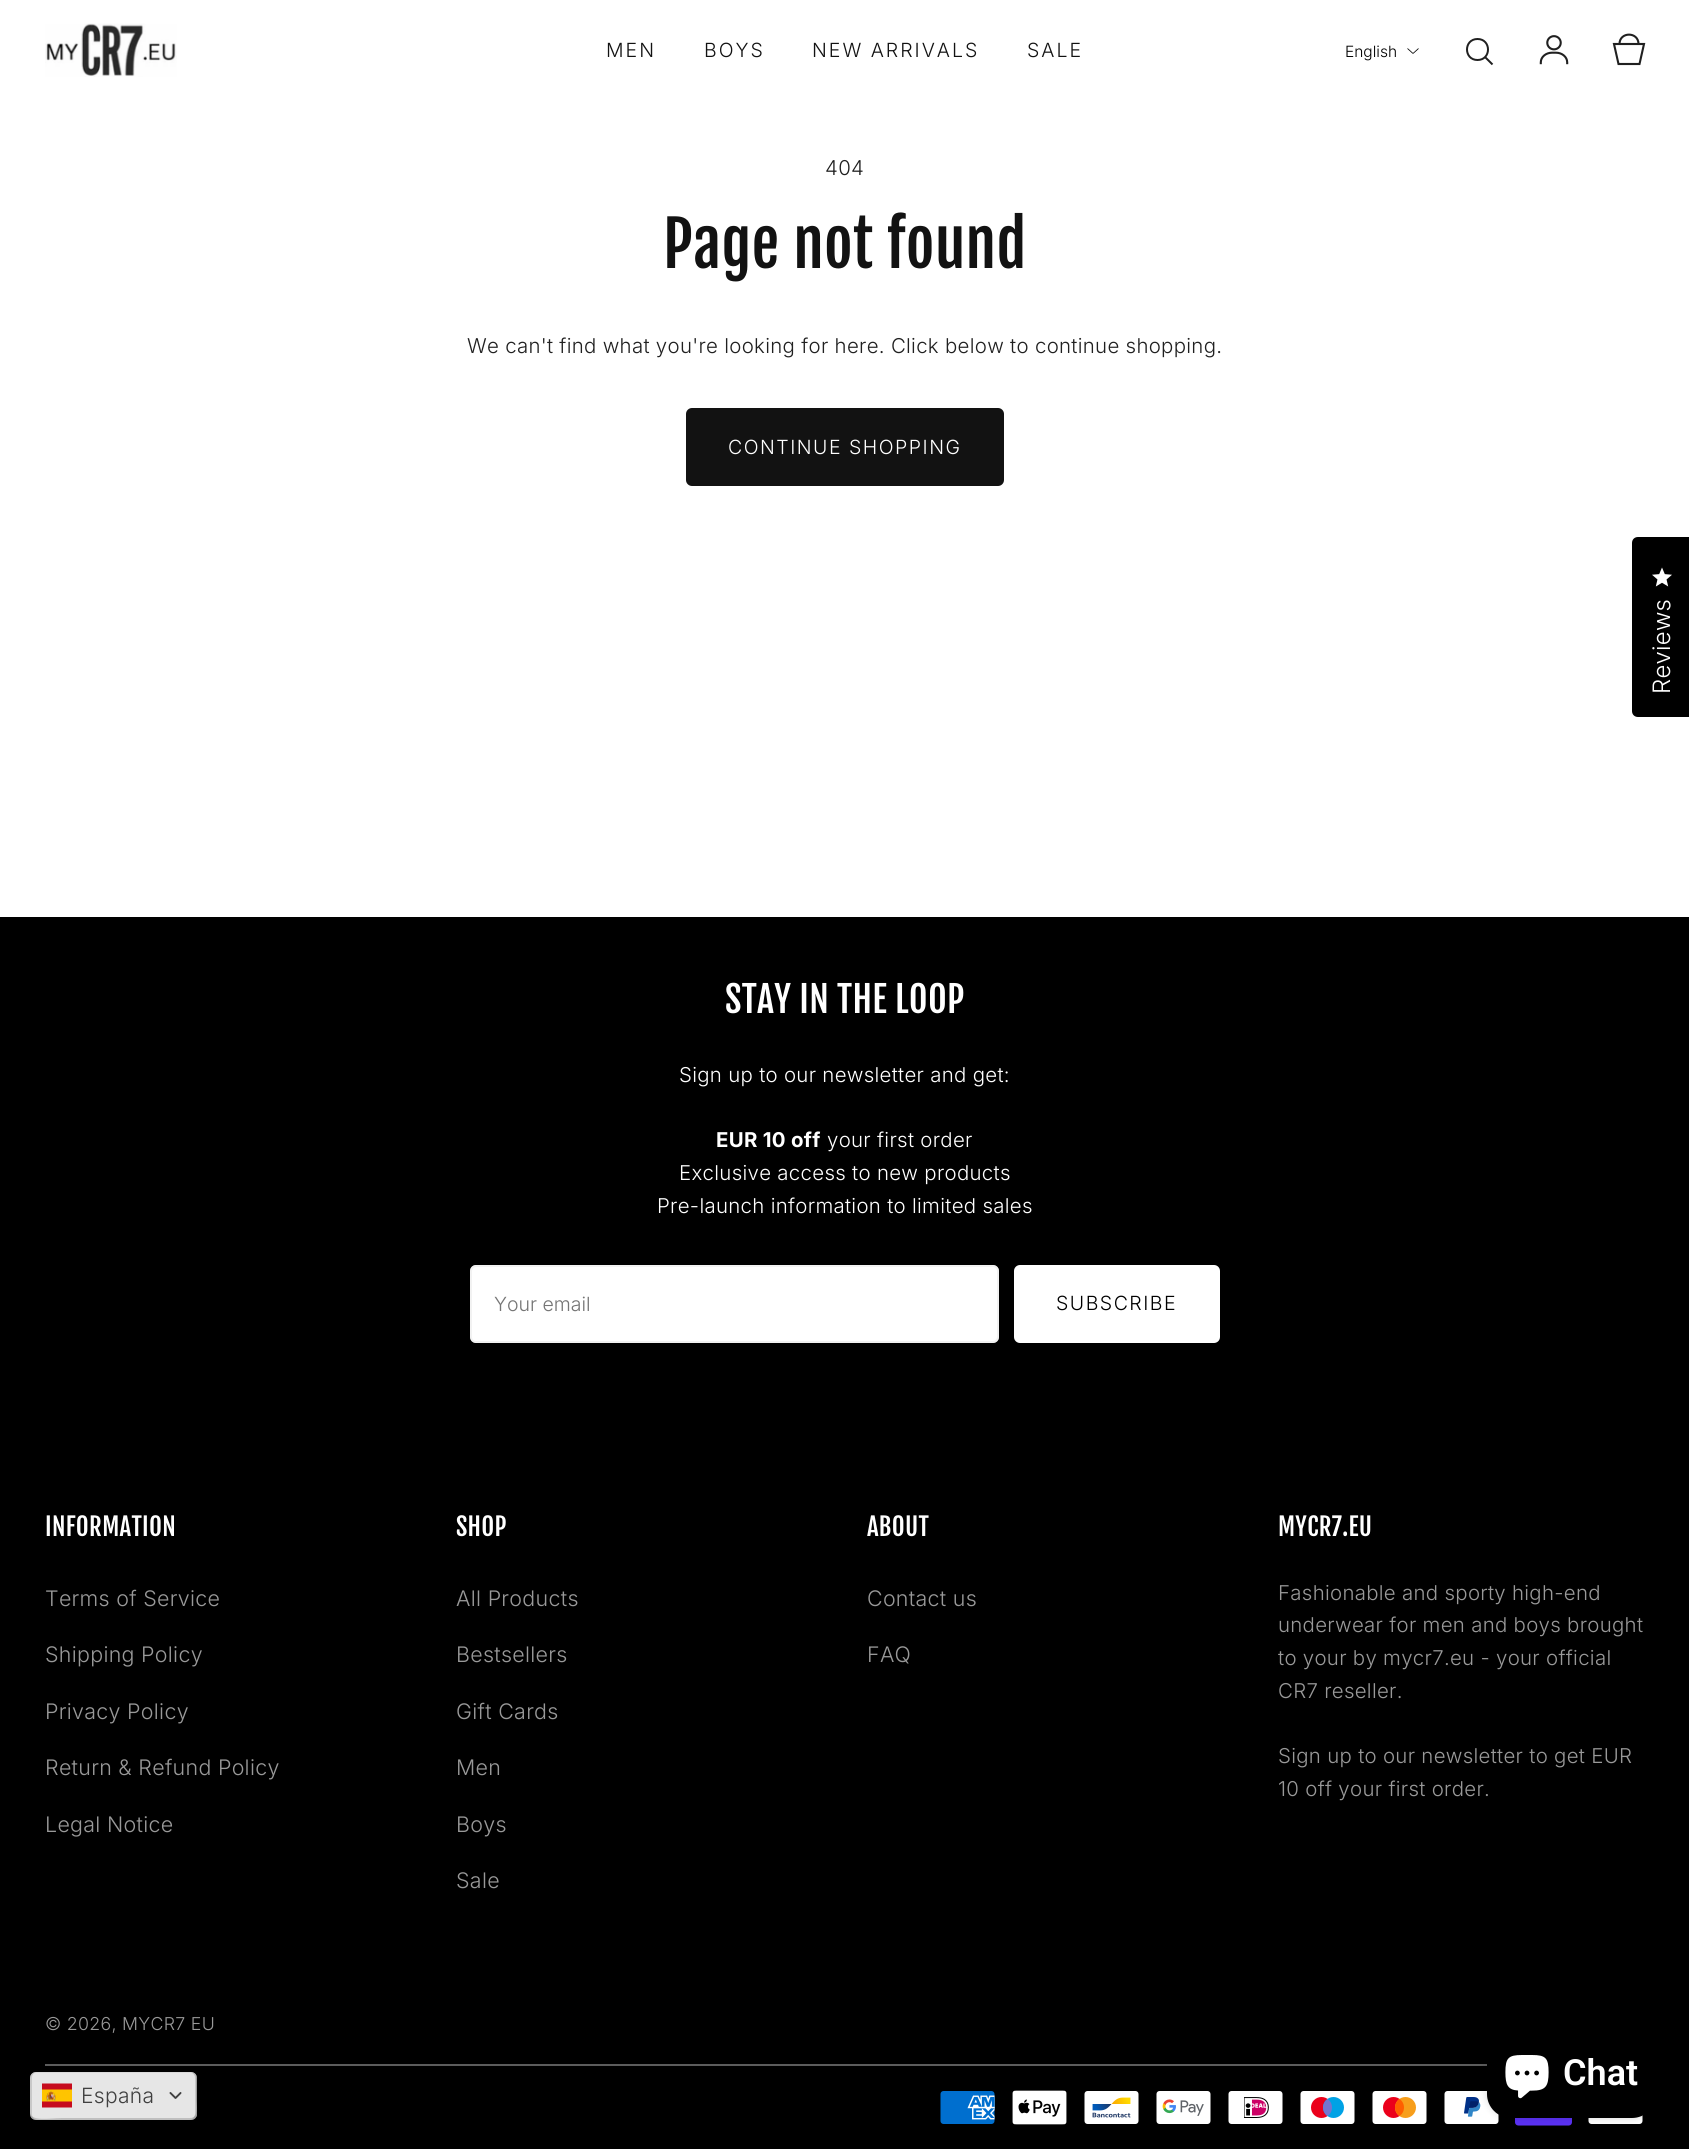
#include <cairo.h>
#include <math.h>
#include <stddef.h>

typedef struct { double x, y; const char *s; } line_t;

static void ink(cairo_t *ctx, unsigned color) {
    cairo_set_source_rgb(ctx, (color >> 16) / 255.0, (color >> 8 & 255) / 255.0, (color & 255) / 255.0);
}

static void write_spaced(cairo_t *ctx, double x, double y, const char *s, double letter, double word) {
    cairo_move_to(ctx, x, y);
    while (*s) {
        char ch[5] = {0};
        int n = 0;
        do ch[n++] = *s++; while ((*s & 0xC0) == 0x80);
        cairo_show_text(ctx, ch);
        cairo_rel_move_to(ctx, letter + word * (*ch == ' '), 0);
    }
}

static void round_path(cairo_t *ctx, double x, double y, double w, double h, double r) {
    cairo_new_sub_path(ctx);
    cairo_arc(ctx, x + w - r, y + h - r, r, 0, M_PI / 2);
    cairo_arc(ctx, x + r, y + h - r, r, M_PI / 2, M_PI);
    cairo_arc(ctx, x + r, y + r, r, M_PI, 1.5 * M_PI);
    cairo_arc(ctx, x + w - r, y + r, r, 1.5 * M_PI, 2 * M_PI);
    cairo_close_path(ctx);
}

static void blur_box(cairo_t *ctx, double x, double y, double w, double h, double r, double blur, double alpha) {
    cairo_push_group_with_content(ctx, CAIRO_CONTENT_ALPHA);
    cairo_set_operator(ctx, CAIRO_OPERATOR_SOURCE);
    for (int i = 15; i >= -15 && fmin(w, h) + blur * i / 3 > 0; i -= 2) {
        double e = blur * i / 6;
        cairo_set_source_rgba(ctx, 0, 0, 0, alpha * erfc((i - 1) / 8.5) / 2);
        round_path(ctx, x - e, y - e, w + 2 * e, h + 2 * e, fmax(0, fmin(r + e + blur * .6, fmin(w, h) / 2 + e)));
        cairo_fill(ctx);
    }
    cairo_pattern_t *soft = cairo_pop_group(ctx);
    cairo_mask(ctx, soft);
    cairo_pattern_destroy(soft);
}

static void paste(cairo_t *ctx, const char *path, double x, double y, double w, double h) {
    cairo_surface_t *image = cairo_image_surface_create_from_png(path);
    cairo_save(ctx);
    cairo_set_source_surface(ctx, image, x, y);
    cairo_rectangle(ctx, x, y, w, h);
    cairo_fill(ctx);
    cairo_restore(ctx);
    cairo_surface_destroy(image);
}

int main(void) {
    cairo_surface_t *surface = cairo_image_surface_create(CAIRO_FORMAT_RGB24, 1689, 2149);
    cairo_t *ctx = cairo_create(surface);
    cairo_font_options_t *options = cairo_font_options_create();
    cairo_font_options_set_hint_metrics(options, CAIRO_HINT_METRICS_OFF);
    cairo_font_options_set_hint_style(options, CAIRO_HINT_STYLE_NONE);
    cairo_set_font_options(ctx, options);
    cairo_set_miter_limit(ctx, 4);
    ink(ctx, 0xFFFFFF);
    cairo_paint(ctx);
    paste(ctx, "media/1.png", 45, 23, 132, 54);
    cairo_select_font_face(ctx, "Inter Light", CAIRO_FONT_SLANT_NORMAL, CAIRO_FONT_WEIGHT_NORMAL);
    cairo_set_font_size(ctx, 19.5);
    ink(ctx, 0x121212);
    {
        static const line_t items[] = {
            {606, 57, "MEN"},
            {704, 57, "BOYS"},
            {812, 57, "NEW ARRIVALS"},
            {1027, 57, "SALE"},
        };
        for (size_t i = 0; i < sizeof items / sizeof *items; i++) {
            write_spaced(ctx, items[i].x, items[i].y, items[i].s, 2, 0);
        }
    }
    cairo_set_font_size(ctx, 15.5);
    ink(ctx, 0x000000);
    cairo_move_to(ctx, 1345, 57);
    cairo_show_text(ctx, "English");
    paste(ctx, "media/2.png", 1407, 48, 12, 6);
    cairo_new_path(ctx);
    cairo_move_to(ctx, 1477.5, 60);
    cairo_curve_to(ctx, 1491.5, 60, 1491.5, 39, 1477.5, 39);
    cairo_curve_to(ctx, 1463.5, 39, 1463.5, 60, 1477.5, 60);
    cairo_close_path(ctx);
    cairo_move_to(ctx, 1492.5, 64.5);
    cairo_line_to(ctx, 1485, 57);
    ink(ctx, 0x202020);
    cairo_stroke(ctx);
    paste(ctx, "media/3.png", 1539, 35, 30, 30);
    cairo_new_path(ctx);
    cairo_move_to(ctx, 1644, 44);
    cairo_line_to(ctx, 1614, 44);
    cairo_line_to(ctx, 1618.5, 64);
    cairo_line_to(ctx, 1639.5, 64);
    cairo_close_path(ctx);
    cairo_move_to(ctx, 1638.5, 44);
    cairo_curve_to(ctx, 1638.5, 31.5, 1619.5, 31.5, 1619.5, 44);
    cairo_set_line_width(ctx, 2.1);
    cairo_stroke(ctx);
    cairo_set_font_size(ctx, 20.4);
    write_spaced(ctx, 825, 175, "404", 0.3, 0);
    cairo_select_font_face(ctx, "Fjalla One", CAIRO_FONT_SLANT_NORMAL, CAIRO_FONT_WEIGHT_NORMAL);
    cairo_set_font_size(ctx, 62);
    ink(ctx, 0x121212);
    write_spaced(ctx, 663, 268, "Page not found", 0.3, 0);
    cairo_select_font_face(ctx, "Inter Light", CAIRO_FONT_SLANT_NORMAL, CAIRO_FONT_WEIGHT_NORMAL);
    cairo_set_font_size(ctx, 20.4);
    ink(ctx, 0x202020);
    write_spaced(ctx, 467, 353, "We can't find what you're looking for here. Click below to continue shopping.", 0.3, 0);
    ink(ctx, 0x121212);
    round_path(ctx, 686, 408, 318, 78, 6);
    cairo_fill(ctx);
    cairo_set_font_size(ctx, 19.5);
    ink(ctx, 0xFFFFFF);
    write_spaced(ctx, 728, 454, "CONTINUE SHOPPING", 1.5, 0);
    ink(ctx, 0x000000);
    cairo_new_path(ctx);
    cairo_move_to(ctx, 1638, 537);
    cairo_line_to(ctx, 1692, 537);
    cairo_line_to(ctx, 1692, 717);
    cairo_line_to(ctx, 1638, 717);
    cairo_curve_to(ctx, 1634.5, 717, 1632, 714.5, 1632, 711);
    cairo_line_to(ctx, 1632, 543);
    cairo_curve_to(ctx, 1632, 539.5, 1634.5, 537, 1638, 537);
    cairo_close_path(ctx);
    cairo_fill(ctx);
    paste(ctx, "media/4.png", 1652, 567, 20, 20);
    cairo_select_font_face(ctx, "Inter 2 Light", CAIRO_FONT_SLANT_NORMAL, CAIRO_FONT_WEIGHT_NORMAL);
    cairo_set_font_size(ctx, 24);
    ink(ctx, 0xFFFFFF);
    cairo_save(ctx);
    cairo_translate(ctx, 1670, 694);
    cairo_rotate(ctx, -89.9 * M_PI / 180);
    write_spaced(ctx, 0, 0, "Reviews", 0.3, 0);
    cairo_restore(ctx);
    ink(ctx, 0x000000);
    cairo_rectangle(ctx, 0, 917, 1689, 1232);
    cairo_fill(ctx);
    cairo_select_font_face(ctx, "Fjalla One", CAIRO_FONT_SLANT_NORMAL, CAIRO_FONT_WEIGHT_NORMAL);
    cairo_set_font_size(ctx, 36);
    ink(ctx, 0xFFFFFF);
    write_spaced(ctx, 725, 1013, "STAY IN THE LOOP", 0.3, 0);
    cairo_select_font_face(ctx, "Inter Light", CAIRO_FONT_SLANT_NORMAL, CAIRO_FONT_WEIGHT_NORMAL);
    cairo_set_font_size(ctx, 20.4);
    write_spaced(ctx, 679, 1082, "Sign up to our newsletter and get:", 0.3, 0);
    cairo_select_font_face(ctx, "Inter", CAIRO_FONT_SLANT_NORMAL, CAIRO_FONT_WEIGHT_BOLD);
    write_spaced(ctx, 716, 1147, "EUR 10 off", 0.3, 0);
    cairo_select_font_face(ctx, "Inter Light", CAIRO_FONT_SLANT_NORMAL, CAIRO_FONT_WEIGHT_NORMAL);
    {
        static const line_t items[] = {
            {827, 1147, "your first order"},
            {679, 1180, "Exclusive access to new products"},
            {657, 1213, "Pre-launch information to limited sales"},
        };
        for (size_t i = 0; i < sizeof items / sizeof *items; i++) {
            write_spaced(ctx, items[i].x, items[i].y, items[i].s, 0.3, 0);
        }
    }
    round_path(ctx, 470, 1265, 529, 78, 6);
    cairo_fill(ctx);
    round_path(ctx, 471, 1266, 527, 76, 5);
    cairo_set_source_rgba(ctx, 0.902, 0.902, 0.902, 0.55);
    cairo_set_line_width(ctx, 2);
    cairo_stroke(ctx);
    cairo_set_font_size(ctx, 19.5);
    ink(ctx, 0x757575);
    cairo_move_to(ctx, 494, 1311);
    cairo_show_text(ctx, "Your email");
    ink(ctx, 0xFFFFFF);
    round_path(ctx, 1014, 1265, 206, 78, 6);
    cairo_fill(ctx);
    ink(ctx, 0x000000);
    write_spaced(ctx, 1056, 1310, "SUBSCRIBE", 1.5, 0);
    cairo_select_font_face(ctx, "Fjalla One", CAIRO_FONT_SLANT_NORMAL, CAIRO_FONT_WEIGHT_NORMAL);
    cairo_set_font_size(ctx, 24.75);
    ink(ctx, 0xFFFFFF);
    write_spaced(ctx, 45, 1536, "INFORMATION", 0.3, 0);
    cairo_select_font_face(ctx, "Inter Light", CAIRO_FONT_SLANT_NORMAL, CAIRO_FONT_WEIGHT_NORMAL);
    cairo_set_font_size(ctx, 21.4);
    ink(ctx, 0x999999);
    {
        static const line_t items[] = {
            {45, 1606, "Terms of Service"},
            {45, 1662, "Shipping Policy"},
            {45, 1719, "Privacy Policy"},
            {45, 1775, "Return & Refund Policy"},
            {45, 1832, "Legal Notice"},
        };
        for (size_t i = 0; i < sizeof items / sizeof *items; i++) {
            write_spaced(ctx, items[i].x, items[i].y, items[i].s, 0.3, 0);
        }
    }
    cairo_select_font_face(ctx, "Fjalla One", CAIRO_FONT_SLANT_NORMAL, CAIRO_FONT_WEIGHT_NORMAL);
    cairo_set_font_size(ctx, 24.75);
    ink(ctx, 0xFFFFFF);
    write_spaced(ctx, 456, 1536, "SHOP", 0.3, 0);
    cairo_select_font_face(ctx, "Inter Light", CAIRO_FONT_SLANT_NORMAL, CAIRO_FONT_WEIGHT_NORMAL);
    cairo_set_font_size(ctx, 21.4);
    ink(ctx, 0x999999);
    {
        static const line_t items[] = {
            {456, 1606, "All Products"},
            {456, 1662, "Bestsellers"},
            {456, 1719, "Gift Cards"},
            {456, 1775, "Men"},
            {456, 1832, "Boys"},
            {456, 1888, "Sale"},
        };
        for (size_t i = 0; i < sizeof items / sizeof *items; i++) {
            write_spaced(ctx, items[i].x, items[i].y, items[i].s, 0.3, 0);
        }
    }
    cairo_select_font_face(ctx, "Fjalla One", CAIRO_FONT_SLANT_NORMAL, CAIRO_FONT_WEIGHT_NORMAL);
    cairo_set_font_size(ctx, 24.75);
    ink(ctx, 0xFFFFFF);
    write_spaced(ctx, 867, 1536, "ABOUT", 0.3, 0);
    cairo_select_font_face(ctx, "Inter Light", CAIRO_FONT_SLANT_NORMAL, CAIRO_FONT_WEIGHT_NORMAL);
    cairo_set_font_size(ctx, 21.4);
    ink(ctx, 0x999999);
    write_spaced(ctx, 867, 1606, "Contact us", 0.3, 0);
    write_spaced(ctx, 867, 1662, "FAQ", 0.3, 0);
    cairo_select_font_face(ctx, "Fjalla One", CAIRO_FONT_SLANT_NORMAL, CAIRO_FONT_WEIGHT_NORMAL);
    cairo_set_font_size(ctx, 24.75);
    ink(ctx, 0xFFFFFF);
    write_spaced(ctx, 1278, 1536, "MYCR7.EU", 0.3, 0);
    cairo_select_font_face(ctx, "Inter Light", CAIRO_FONT_SLANT_NORMAL, CAIRO_FONT_WEIGHT_NORMAL);
    cairo_set_font_size(ctx, 20.4);
    ink(ctx, 0x999999);
    {
        static const line_t items[] = {
            {1278, 1600, "Fashionable and sporty high-end"},
            {1278, 1632, "underwear for men and boys brought"},
            {1278, 1665, "to your by mycr7.eu - your official"},
            {1278, 1698, "CR7 reseller."},
            {1278, 1763, "Sign up to our newsletter to get EUR"},
            {1278, 1796, "10 off your first order."},
        };
        for (size_t i = 0; i < sizeof items / sizeof *items; i++) {
            write_spaced(ctx, items[i].x, items[i].y, items[i].s, 0.3, 0);
        }
    }
    cairo_set_font_size(ctx, 17.75);
    write_spaced(ctx, 45, 2030, "© 2026, MYCR7 EU", 0.3, 0);
    ink(ctx, 0x5C5C5C);
    cairo_rectangle(ctx, 45, 2064, 1442, 2);
    cairo_fill(ctx);
    paste(ctx, "media/5.png", 940, 2091, 55, 33);
    paste(ctx, "media/6.png", 1012, 2090, 55, 35);
    paste(ctx, "media/7.png", 1084, 2091, 55, 33);
    paste(ctx, "media/8.png", 1156, 2091, 55, 33);
    paste(ctx, "media/9.png", 1228, 2091, 55, 33);
    paste(ctx, "media/10.png", 1300, 2091, 55, 33);
    paste(ctx, "media/11.png", 1372, 2091, 55, 33);
    paste(ctx, "media/12.png", 1444, 2091, 55, 33);
    paste(ctx, "media/13.png", 1515, 2118, 57, 8);
    paste(ctx, "media/14.png", 1588, 2115, 55, 9);
    ink(ctx, 0x000000);
    blur_box(ctx, 1487, 2028, 169, 90, 24, 4, 0.15);
    ink(ctx, 0x000000);
    round_path(ctx, 1487, 2028, 169, 90, 24);
    cairo_fill(ctx);
    paste(ctx, "media/15.png", 1505, 2055, 44, 44);
    cairo_select_font_face(ctx, "Roboto SemiBold", CAIRO_FONT_SLANT_NORMAL, CAIRO_FONT_WEIGHT_NORMAL);
    cairo_set_font_size(ctx, 36);
    ink(ctx, 0xFFFFFF);
    cairo_move_to(ctx, 1563, 2085);
    cairo_show_text(ctx, "Chat");
    ink(ctx, 0xE6E6E6);
    round_path(ctx, 30, 2072, 167, 48, 6);
    cairo_fill(ctx);
    cairo_set_source_rgba(ctx, 0.8, 0.8, 0.8, 0.5);
    cairo_new_path(ctx);
    cairo_move_to(ctx, 36, 2073);
    cairo_line_to(ctx, 190, 2073);
    cairo_curve_to(ctx, 194, 2073, 196, 2076, 196, 2079);
    cairo_line_to(ctx, 196, 2115);
    cairo_curve_to(ctx, 196, 2116, 196, 2117, 195, 2118);
    cairo_curve_to(ctx, 196, 2117, 197, 2116, 197, 2114);
    cairo_line_to(ctx, 197, 2078);
    cairo_curve_to(ctx, 197, 2075, 194, 2072, 191, 2072);
    cairo_line_to(ctx, 36, 2072);
    cairo_curve_to(ctx, 33, 2072, 30, 2075, 30, 2078);
    cairo_line_to(ctx, 30, 2079);
    cairo_curve_to(ctx, 30, 2076, 33, 2073, 36, 2073);
    cairo_close_path(ctx);
    cairo_fill(ctx);
    cairo_set_source_rgba(ctx, 0, 0, 0, 0.17);
    cairo_new_path(ctx);
    cairo_move_to(ctx, 30, 2112);
    cairo_line_to(ctx, 30, 2114);
    cairo_curve_to(ctx, 30, 2117, 33, 2120, 36, 2120);
    cairo_line_to(ctx, 191, 2120);
    cairo_curve_to(ctx, 194, 2120, 197, 2117, 197, 2114);
    cairo_line_to(ctx, 197, 2078);
    cairo_curve_to(ctx, 197, 2077, 197, 2075, 196, 2074);
    cairo_line_to(ctx, 196, 2100);
    cairo_curve_to(ctx, 196, 2105, 199, 2118, 190, 2118);
    cairo_line_to(ctx, 62, 2118);
    cairo_curve_to(ctx, 50, 2118, 30, 2122, 30, 2112);
    cairo_close_path(ctx);
    cairo_fill(ctx);
    cairo_set_source_rgba(ctx, 0, 0, 0, 0.13);
    cairo_new_path(ctx);
    cairo_move_to(ctx, 189, 2120);
    cairo_curve_to(ctx, 198, 2120, 197, 2115, 197, 2108);
    cairo_line_to(ctx, 197, 2084);
    cairo_curve_to(ctx, 197, 2077, 198, 2072, 189, 2072);
    cairo_curve_to(ctx, 192, 2072, 195, 2074, 195, 2078);
    cairo_line_to(ctx, 195, 2114);
    cairo_curve_to(ctx, 195, 2117, 192, 2120, 189, 2120);
    cairo_close_path(ctx);
    cairo_fill(ctx);
    cairo_new_path(ctx);
    cairo_move_to(ctx, 36, 2072);
    cairo_curve_to(ctx, 33, 2072, 30, 2075, 30, 2078);
    cairo_line_to(ctx, 30, 2114);
    cairo_curve_to(ctx, 30, 2117, 33, 2120, 36, 2120);
    cairo_line_to(ctx, 38, 2120);
    cairo_curve_to(ctx, 34, 2120, 32, 2117, 32, 2114);
    cairo_line_to(ctx, 32, 2078);
    cairo_curve_to(ctx, 32, 2074, 34, 2072, 38, 2072);
    cairo_close_path(ctx);
    cairo_fill(ctx);
    paste(ctx, "media/16.png", 42, 2083, 30, 25);
    cairo_select_font_face(ctx, "Inter Light", CAIRO_FONT_SLANT_NORMAL, CAIRO_FONT_WEIGHT_NORMAL);
    cairo_set_font_size(ctx, 21);
    ink(ctx, 0x404040);
    write_spaced(ctx, 81, 2103, "España", 0.3, 0);
    paste(ctx, "media/17.png", 169, 2092, 13, 7);
    cairo_surface_write_to_png(surface, "image.png");
    cairo_font_options_destroy(options);
    cairo_destroy(ctx);
    cairo_surface_destroy(surface);
    return 0;
}
